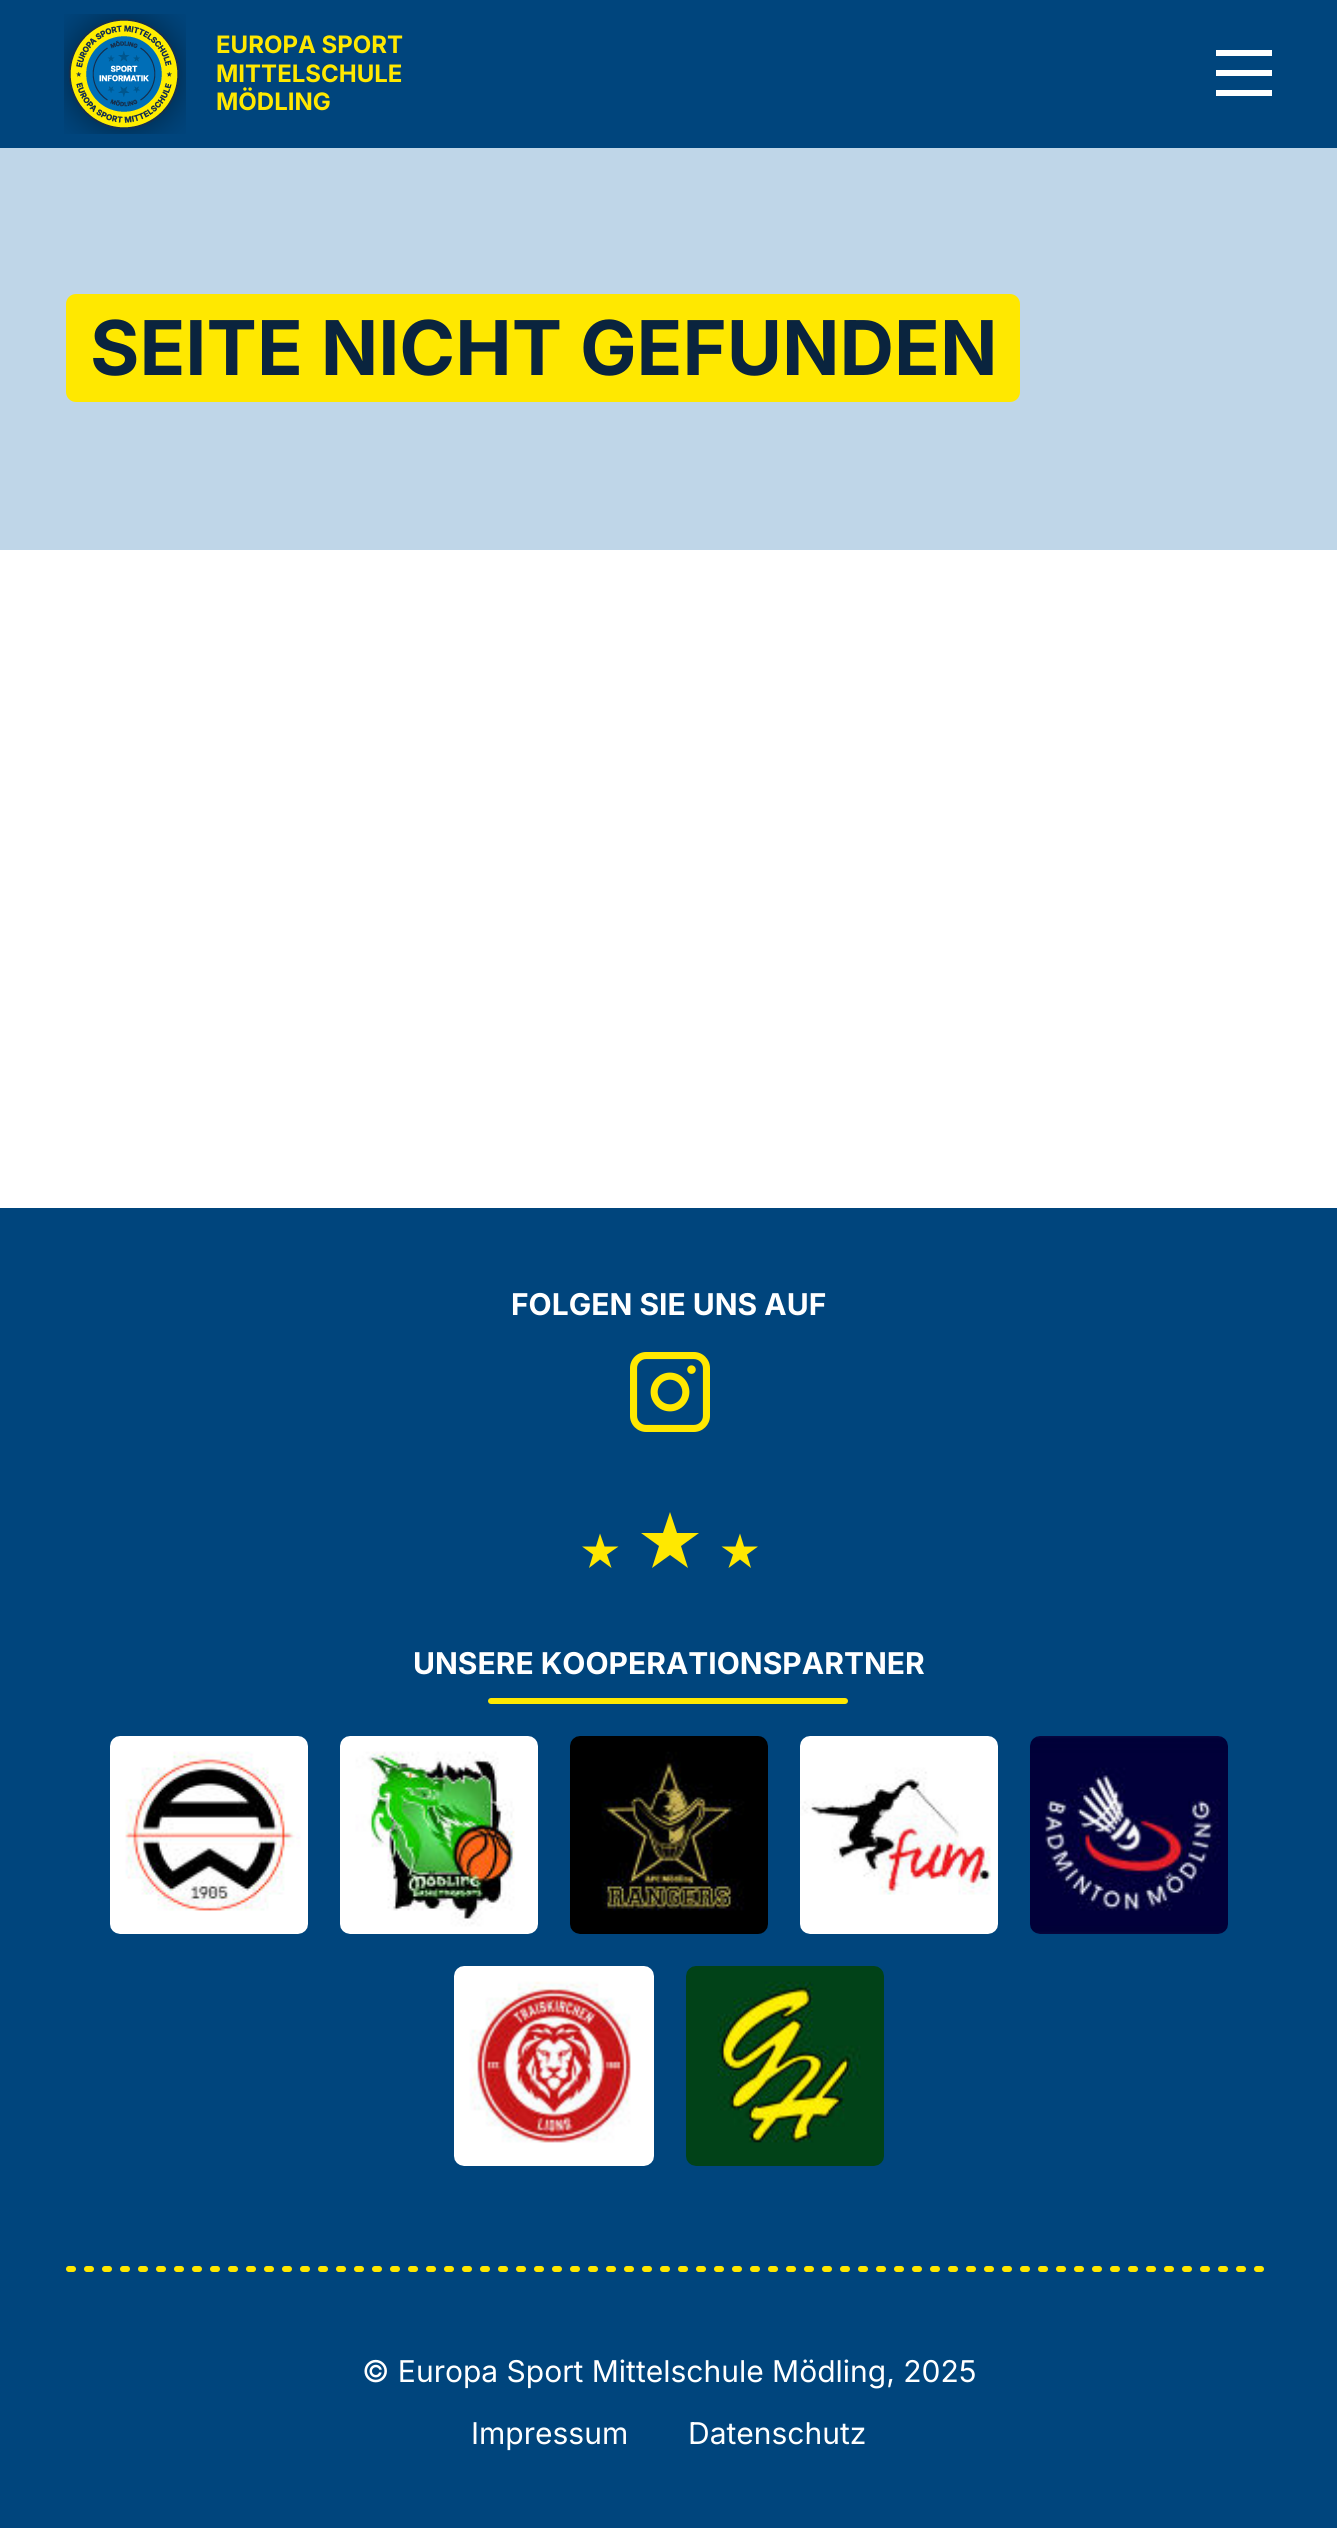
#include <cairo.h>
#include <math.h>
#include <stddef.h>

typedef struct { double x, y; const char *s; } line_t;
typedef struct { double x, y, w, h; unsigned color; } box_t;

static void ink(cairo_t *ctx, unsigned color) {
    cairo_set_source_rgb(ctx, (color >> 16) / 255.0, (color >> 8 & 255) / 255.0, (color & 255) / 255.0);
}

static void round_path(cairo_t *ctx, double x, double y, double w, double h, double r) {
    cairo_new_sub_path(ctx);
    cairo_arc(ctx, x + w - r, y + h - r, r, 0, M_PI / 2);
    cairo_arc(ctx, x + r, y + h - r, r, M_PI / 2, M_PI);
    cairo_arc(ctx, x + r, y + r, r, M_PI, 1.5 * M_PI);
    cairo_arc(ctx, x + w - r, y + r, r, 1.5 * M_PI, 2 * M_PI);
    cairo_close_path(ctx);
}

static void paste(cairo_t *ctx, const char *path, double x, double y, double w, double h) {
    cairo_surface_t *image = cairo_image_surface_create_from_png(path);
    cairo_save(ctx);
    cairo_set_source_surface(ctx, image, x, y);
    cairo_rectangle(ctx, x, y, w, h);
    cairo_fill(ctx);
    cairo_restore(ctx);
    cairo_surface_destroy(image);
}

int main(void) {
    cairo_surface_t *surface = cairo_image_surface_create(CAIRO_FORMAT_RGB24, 1337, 2528);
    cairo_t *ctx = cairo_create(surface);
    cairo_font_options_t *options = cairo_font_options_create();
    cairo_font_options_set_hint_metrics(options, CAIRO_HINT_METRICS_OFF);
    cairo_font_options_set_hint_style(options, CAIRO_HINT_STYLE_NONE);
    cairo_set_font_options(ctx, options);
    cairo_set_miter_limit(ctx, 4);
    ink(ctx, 0xFFFFFF);
    cairo_paint(ctx);
    ink(ctx, 0x00457D);
    cairo_rectangle(ctx, 0, 0, 1337, 148);
    cairo_fill(ctx);
    paste(ctx, "media/1.png", 64, 14, 122, 120);
    cairo_select_font_face(ctx, "Inter", CAIRO_FONT_SLANT_NORMAL, CAIRO_FONT_WEIGHT_BOLD);
    cairo_set_font_size(ctx, 24);
    ink(ctx, 0xFFE800);
    {
        static const line_t items[] = {
            {216, 53, "EUROPA SPORT"},
            {216, 82, "MITTELSCHULE"},
            {216, 110, "MÖDLING"},
        };
        for (size_t i = 0; i < sizeof items / sizeof *items; i++) {
            cairo_move_to(ctx, items[i].x, items[i].y);
            cairo_show_text(ctx, items[i].s);
        }
    }
    {
        static const box_t items[] = {
            {1216, 50, 56, 6, 0xFFFFFF},
            {1216, 70, 56, 6, 0xFFFFFF},
            {1216, 90, 56, 6, 0xFFFFFF},
            {0, 148, 1337, 402, 0xBFD6E8},
        };
        for (size_t i = 0; i < sizeof items / sizeof *items; i++) {
            ink(ctx, items[i].color);
            cairo_rectangle(ctx, items[i].x, items[i].y, items[i].w, items[i].h);
            cairo_fill(ctx);
        }
    }
    ink(ctx, 0xFFE800);
    round_path(ctx, 66, 294, 954, 108, 10);
    cairo_fill(ctx);
    cairo_set_font_size(ctx, 75.5);
    ink(ctx, 0x0A243E);
    cairo_move_to(ctx, 90, 375);
    cairo_show_text(ctx, "SEITE NICHT GEFUNDEN");
    ink(ctx, 0x00457D);
    cairo_rectangle(ctx, 0, 1208, 1337, 1320);
    cairo_fill(ctx);
    cairo_set_font_size(ctx, 30);
    ink(ctx, 0xFFFFFF);
    cairo_move_to(ctx, 511, 1315);
    cairo_show_text(ctx, "FOLGEN SIE UNS AUF");
    paste(ctx, "media/2.png", 630, 1352, 80, 80);
    ink(ctx, 0xFFE800);
    cairo_new_path(ctx);
    cairo_move_to(ctx, 670, 1512);
    cairo_line_to(ctx, 663, 1533);
    cairo_line_to(ctx, 641, 1533);
    cairo_line_to(ctx, 659, 1546);
    cairo_line_to(ctx, 652, 1568);
    cairo_line_to(ctx, 670, 1555);
    cairo_line_to(ctx, 688, 1568);
    cairo_line_to(ctx, 681, 1546);
    cairo_line_to(ctx, 699, 1533);
    cairo_line_to(ctx, 677, 1533);
    cairo_close_path(ctx);
    cairo_fill(ctx);
    cairo_new_path(ctx);
    cairo_move_to(ctx, 735.5, 1546.5);
    cairo_line_to(ctx, 721.5, 1546.5);
    cairo_line_to(ctx, 733, 1554.5);
    cairo_line_to(ctx, 728.5, 1568);
    cairo_line_to(ctx, 740, 1559.5);
    cairo_line_to(ctx, 751, 1568);
    cairo_line_to(ctx, 747, 1554.5);
    cairo_line_to(ctx, 758, 1546.5);
    cairo_line_to(ctx, 744, 1546.5);
    cairo_line_to(ctx, 740, 1533.5);
    cairo_close_path(ctx);
    cairo_fill(ctx);
    cairo_new_path(ctx);
    cairo_move_to(ctx, 596, 1546.5);
    cairo_line_to(ctx, 582, 1546.5);
    cairo_line_to(ctx, 593, 1554.5);
    cairo_line_to(ctx, 589, 1568);
    cairo_line_to(ctx, 600, 1559.5);
    cairo_line_to(ctx, 611.5, 1568);
    cairo_line_to(ctx, 607, 1554.5);
    cairo_line_to(ctx, 618.5, 1546.5);
    cairo_line_to(ctx, 604.5, 1546.5);
    cairo_line_to(ctx, 600, 1533.5);
    cairo_close_path(ctx);
    cairo_fill(ctx);
    ink(ctx, 0xFFFFFF);
    cairo_move_to(ctx, 413, 1674);
    cairo_show_text(ctx, "UNSERE KOOPERATIONSPARTNER");
    ink(ctx, 0xFFE800);
    round_path(ctx, 488, 1698, 360, 6, 3);
    cairo_fill(ctx);
    paste(ctx, "media/3.png", 110, 1736, 198, 198);
    paste(ctx, "media/4.png", 340, 1736, 198, 198);
    paste(ctx, "media/5.png", 570, 1736, 198, 198);
    paste(ctx, "media/6.png", 800, 1736, 198, 198);
    paste(ctx, "media/7.png", 1030, 1736, 198, 198);
    paste(ctx, "media/8.png", 454, 1966, 200, 200);
    paste(ctx, "media/9.png", 686, 1966, 198, 200);
    cairo_save(ctx);
    cairo_rectangle(ctx, 66, 2266, 1206, 6);
    cairo_clip(ctx);
    cairo_new_path(ctx);
    cairo_move_to(ctx, 69, 2269);
    cairo_line_to(ctx, 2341, 2269);
    cairo_set_line_width(ctx, 6);
    cairo_set_line_cap(ctx, CAIRO_LINE_CAP_ROUND);
    cairo_set_dash(ctx, (double[]){4, 14}, 2, 0);
    cairo_stroke(ctx);
    cairo_restore(ctx);
    cairo_select_font_face(ctx, "Inter", CAIRO_FONT_SLANT_NORMAL, CAIRO_FONT_WEIGHT_NORMAL);
    ink(ctx, 0xFFFFFF);
    {
        static const line_t items[] = {
            {362, 2382, "© Europa Sport Mittelschule Mödling, 2025"},
            {471, 2444, "Impressum"},
            {688, 2444, "Datenschutz"},
        };
        for (size_t i = 0; i < sizeof items / sizeof *items; i++) {
            cairo_move_to(ctx, items[i].x, items[i].y);
            cairo_show_text(ctx, items[i].s);
        }
    }
    cairo_surface_write_to_png(surface, "image.png");
    cairo_font_options_destroy(options);
    cairo_destroy(ctx);
    cairo_surface_destroy(surface);
    return 0;
}
